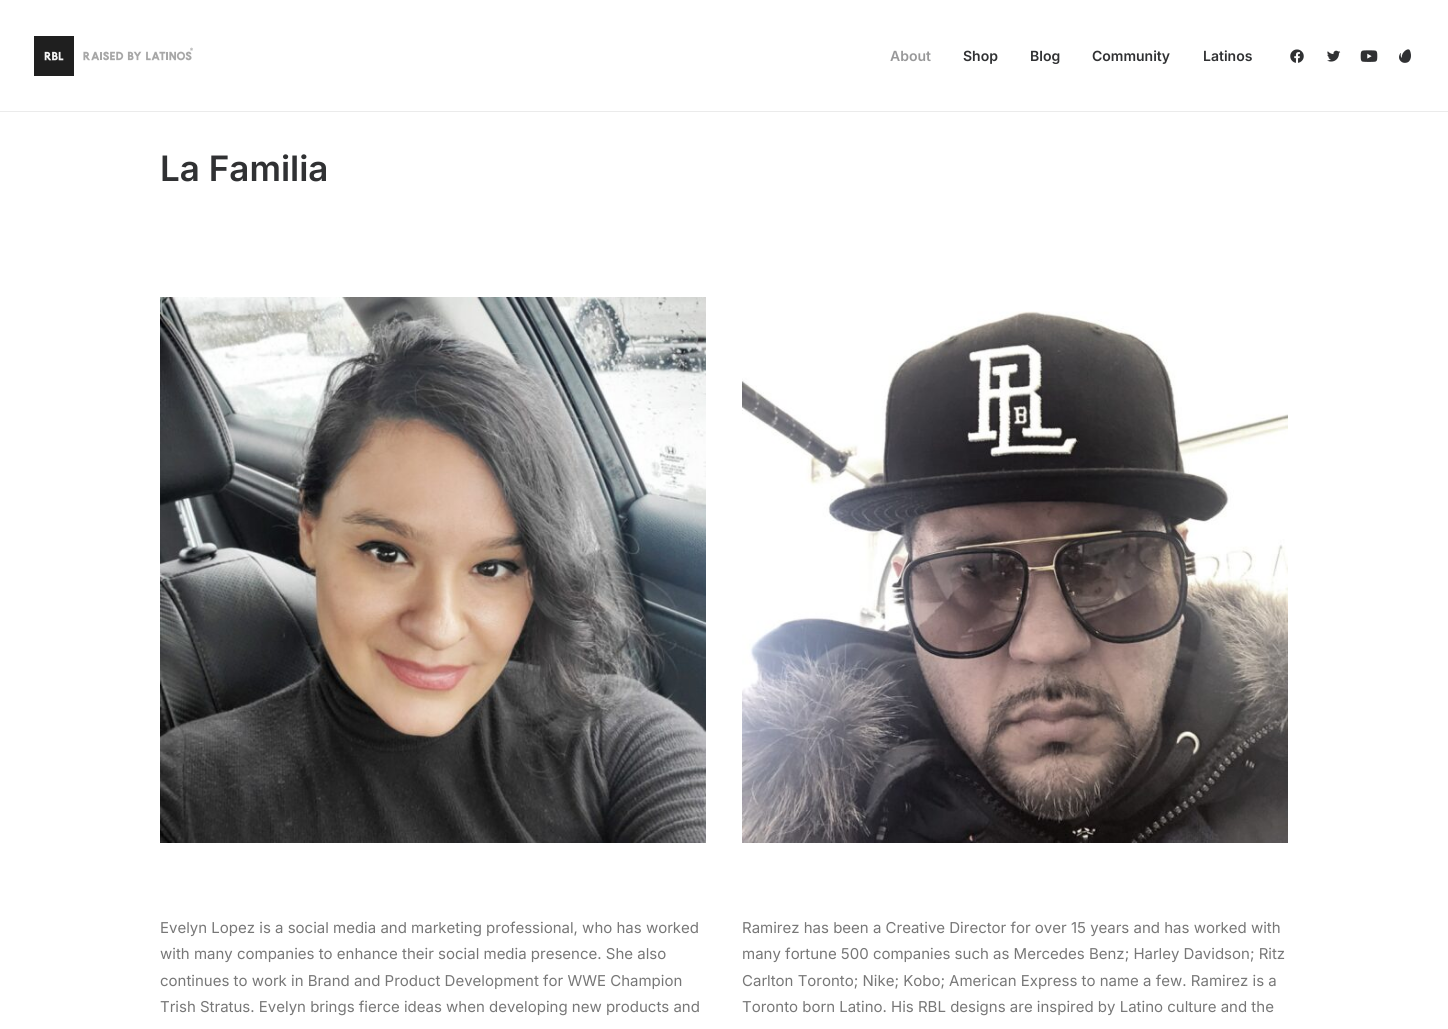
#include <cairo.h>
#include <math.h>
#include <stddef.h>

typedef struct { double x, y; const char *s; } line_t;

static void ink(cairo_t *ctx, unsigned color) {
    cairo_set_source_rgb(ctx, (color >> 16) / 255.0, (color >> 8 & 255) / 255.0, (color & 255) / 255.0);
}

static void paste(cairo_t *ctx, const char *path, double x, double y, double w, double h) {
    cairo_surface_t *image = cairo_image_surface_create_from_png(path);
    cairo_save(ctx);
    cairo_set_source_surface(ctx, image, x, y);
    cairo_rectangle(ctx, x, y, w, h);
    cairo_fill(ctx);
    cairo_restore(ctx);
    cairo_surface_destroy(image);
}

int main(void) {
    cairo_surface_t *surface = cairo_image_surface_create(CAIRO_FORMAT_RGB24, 1448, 1029);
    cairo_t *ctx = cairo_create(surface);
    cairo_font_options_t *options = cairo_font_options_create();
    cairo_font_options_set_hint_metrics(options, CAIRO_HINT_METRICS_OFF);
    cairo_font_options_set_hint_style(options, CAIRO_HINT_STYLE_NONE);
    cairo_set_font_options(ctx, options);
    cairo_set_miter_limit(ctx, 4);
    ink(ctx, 0xFFFFFF);
    cairo_paint(ctx);
    paste(ctx, "media/1.png", 34, 36, 159, 40);
    cairo_select_font_face(ctx, "Inter SemiBold", CAIRO_FONT_SLANT_NORMAL, CAIRO_FONT_WEIGHT_NORMAL);
    cairo_set_font_size(ctx, 14);
    ink(ctx, 0x989899);
    cairo_move_to(ctx, 890, 61);
    cairo_show_text(ctx, "About");
    ink(ctx, 0x303133);
    {
        static const line_t items[] = {
            {963, 61, "Shop"},
            {1030, 61, "Blog"},
            {1092, 61, "Community"},
            {1203, 61, "Latinos"},
        };
        for (size_t i = 0; i < sizeof items / sizeof *items; i++) {
            cairo_move_to(ctx, items[i].x, items[i].y);
            cairo_show_text(ctx, items[i].s);
        }
    }
    paste(ctx, "media/2.png", 1290, 49, 14, 14);
    paste(ctx, "media/3.png", 1327, 50, 14, 12);
    paste(ctx, "media/4.png", 1360, 50, 18, 12);
    paste(ctx, "media/5.png", 1399, 49, 12, 14);
    ink(ctx, 0xEBEBEB);
    cairo_rectangle(ctx, 0, 111, 1448, 1);
    cairo_fill(ctx);
    cairo_set_font_size(ctx, 35);
    ink(ctx, 0x303133);
    cairo_move_to(ctx, 160, 181);
    cairo_show_text(ctx, "La Familia");
    paste(ctx, "media/6.png", 160, 297, 546, 546);
    cairo_select_font_face(ctx, "Inter", CAIRO_FONT_SLANT_NORMAL, CAIRO_FONT_WEIGHT_NORMAL);
    cairo_set_font_size(ctx, 15);
    ink(ctx, 0x777777);
    {
        static const line_t items[] = {
            {160, 933, "Evelyn Lopez is a social media and marketing professional, who has worked"},
            {160, 959, "with many companies to enhance their social media presence. She also"},
            {160, 986, "continues to work in Brand and Product Development for WWE Champion"},
            {160, 1012, "Trish Stratus. Evelyn brings fierce ideas when developing new products and"},
        };
        for (size_t i = 0; i < sizeof items / sizeof *items; i++) {
            cairo_move_to(ctx, items[i].x, items[i].y);
            cairo_show_text(ctx, items[i].s);
        }
    }
    paste(ctx, "media/7.png", 742, 311, 546, 532);
    {
        static const line_t items[] = {
            {742, 933, "Ramirez has been a Creative Director for over 15 years and has worked with"},
            {742, 959, "many fortune 500 companies such as Mercedes Benz; Harley Davidson; Ritz"},
            {742, 986, "Carlton Toronto; Nike; Kobo; American Express to name a few. Ramirez is a"},
            {742, 1012, "Toronto born Latino. His RBL designs are inspired by Latino culture and the"},
        };
        for (size_t i = 0; i < sizeof items / sizeof *items; i++) {
            cairo_move_to(ctx, items[i].x, items[i].y);
            cairo_show_text(ctx, items[i].s);
        }
    }
    cairo_surface_write_to_png(surface, "image.png");
    cairo_font_options_destroy(options);
    cairo_destroy(ctx);
    cairo_surface_destroy(surface);
    return 0;
}
